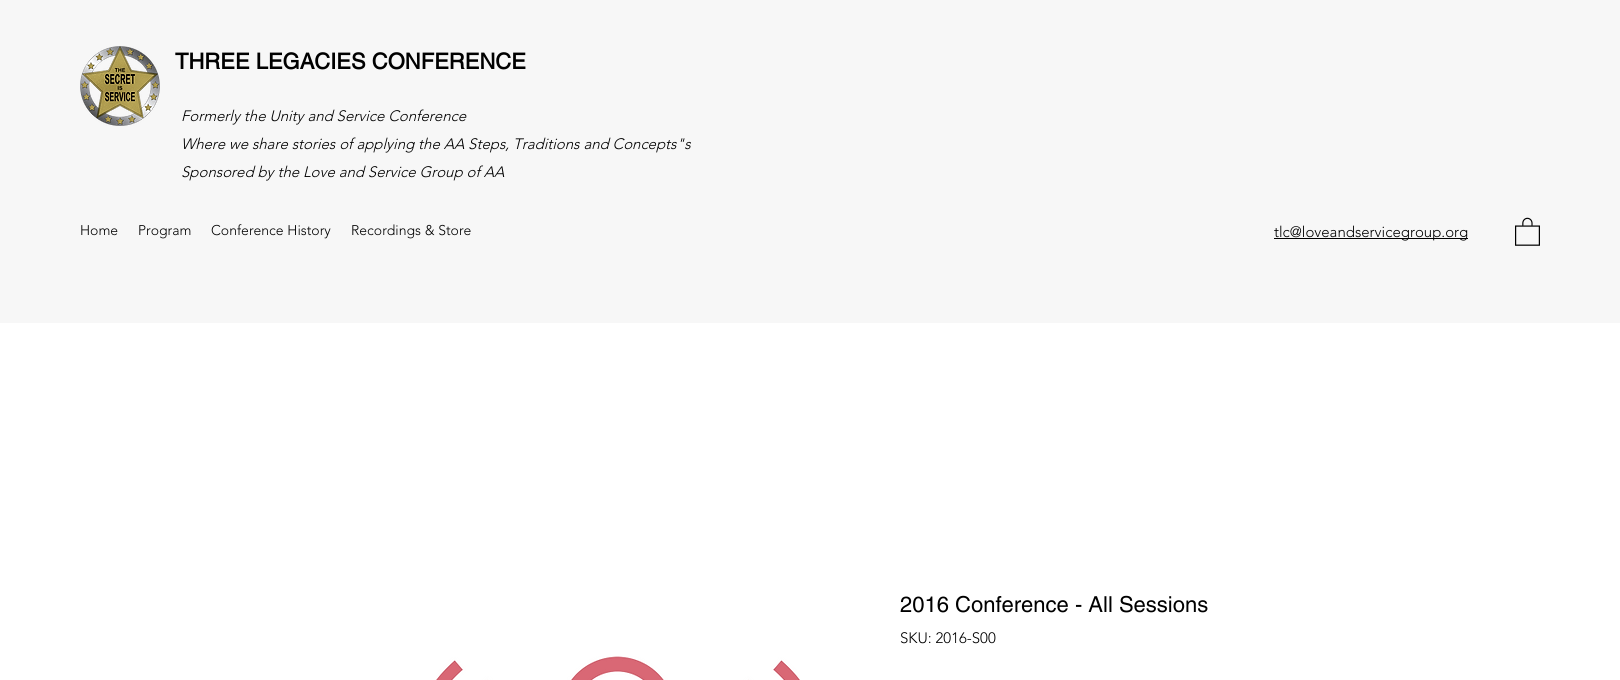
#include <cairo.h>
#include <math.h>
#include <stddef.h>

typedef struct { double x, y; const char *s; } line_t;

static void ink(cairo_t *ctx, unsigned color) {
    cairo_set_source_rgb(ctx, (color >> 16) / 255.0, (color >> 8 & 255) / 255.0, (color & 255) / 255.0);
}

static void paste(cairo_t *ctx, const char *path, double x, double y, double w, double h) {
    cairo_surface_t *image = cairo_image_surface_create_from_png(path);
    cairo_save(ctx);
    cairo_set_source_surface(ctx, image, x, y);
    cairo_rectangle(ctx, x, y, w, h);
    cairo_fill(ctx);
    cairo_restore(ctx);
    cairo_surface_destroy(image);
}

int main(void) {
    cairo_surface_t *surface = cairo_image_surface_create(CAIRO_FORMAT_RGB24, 1620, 680);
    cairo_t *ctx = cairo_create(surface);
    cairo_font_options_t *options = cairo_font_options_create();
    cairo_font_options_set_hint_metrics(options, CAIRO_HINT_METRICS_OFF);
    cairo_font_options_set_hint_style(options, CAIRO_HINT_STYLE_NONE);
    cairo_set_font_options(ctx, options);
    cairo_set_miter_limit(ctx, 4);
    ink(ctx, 0xFFFFFF);
    cairo_paint(ctx);
    ink(ctx, 0xF7F7F7);
    cairo_rectangle(ctx, 0, 0, 1620, 323);
    cairo_fill(ctx);
    paste(ctx, "media/1.png", 80, 46, 80, 80);
    cairo_select_font_face(ctx, "helvetica", CAIRO_FONT_SLANT_NORMAL, CAIRO_FONT_WEIGHT_BOLD);
    cairo_set_font_size(ctx, 22);
    ink(ctx, 0x000000);
    cairo_move_to(ctx, 175, 69);
    cairo_show_text(ctx, "THREE LEGACIES CONFERENCE");
    cairo_select_font_face(ctx, "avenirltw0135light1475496 Light", CAIRO_FONT_SLANT_ITALIC, CAIRO_FONT_WEIGHT_NORMAL);
    cairo_set_font_size(ctx, 15);
    {
        static const line_t items[] = {
            {181, 121, "Formerly the Unity and Service Conference"},
            {181, 149, "Where we share stories of applying the AA Steps, Traditions and Concepts\"s"},
            {181, 177, "Sponsored by the Love and Service Group of AA"},
        };
        for (size_t i = 0; i < sizeof items / sizeof *items; i++) {
            cairo_move_to(ctx, items[i].x, items[i].y);
            cairo_show_text(ctx, items[i].s);
        }
    }
    cairo_select_font_face(ctx, "avenirltw0135light1475496 Light", CAIRO_FONT_SLANT_NORMAL, CAIRO_FONT_WEIGHT_NORMAL);
    cairo_set_font_size(ctx, 14);
    {
        static const line_t items[] = {
            {80, 235, "Home"},
            {138, 235, "Program"},
            {211, 235, "Conference History"},
            {351, 235, "Recordings & Store"},
        };
        for (size_t i = 0; i < sizeof items / sizeof *items; i++) {
            cairo_move_to(ctx, items[i].x, items[i].y);
            cairo_show_text(ctx, items[i].s);
        }
    }
    cairo_rectangle(ctx, 1274, 238, 194, 1);
    cairo_fill(ctx);
    cairo_set_font_size(ctx, 15);
    cairo_move_to(ctx, 1274, 237);
    cairo_show_text(ctx, "tlc@loveandservicegroup.org");
    paste(ctx, "media/2.png", 1515, 217, 25, 29);
    cairo_select_font_face(ctx, "helvetica", CAIRO_FONT_SLANT_NORMAL, CAIRO_FONT_WEIGHT_NORMAL);
    cairo_set_font_size(ctx, 22);
    cairo_move_to(ctx, 900, 612);
    cairo_show_text(ctx, "2016 Conference - All Sessions");
    cairo_select_font_face(ctx, "avenirltw0135light1475496 Light", CAIRO_FONT_SLANT_NORMAL, CAIRO_FONT_WEIGHT_NORMAL);
    cairo_set_font_size(ctx, 15);
    cairo_move_to(ctx, 900, 643);
    cairo_show_text(ctx, "SKU: 2016-S00");
    paste(ctx, "media/3.png", 436, 656, 364, 24);
    cairo_surface_write_to_png(surface, "image.png");
    cairo_font_options_destroy(options);
    cairo_destroy(ctx);
    cairo_surface_destroy(surface);
    return 0;
}
